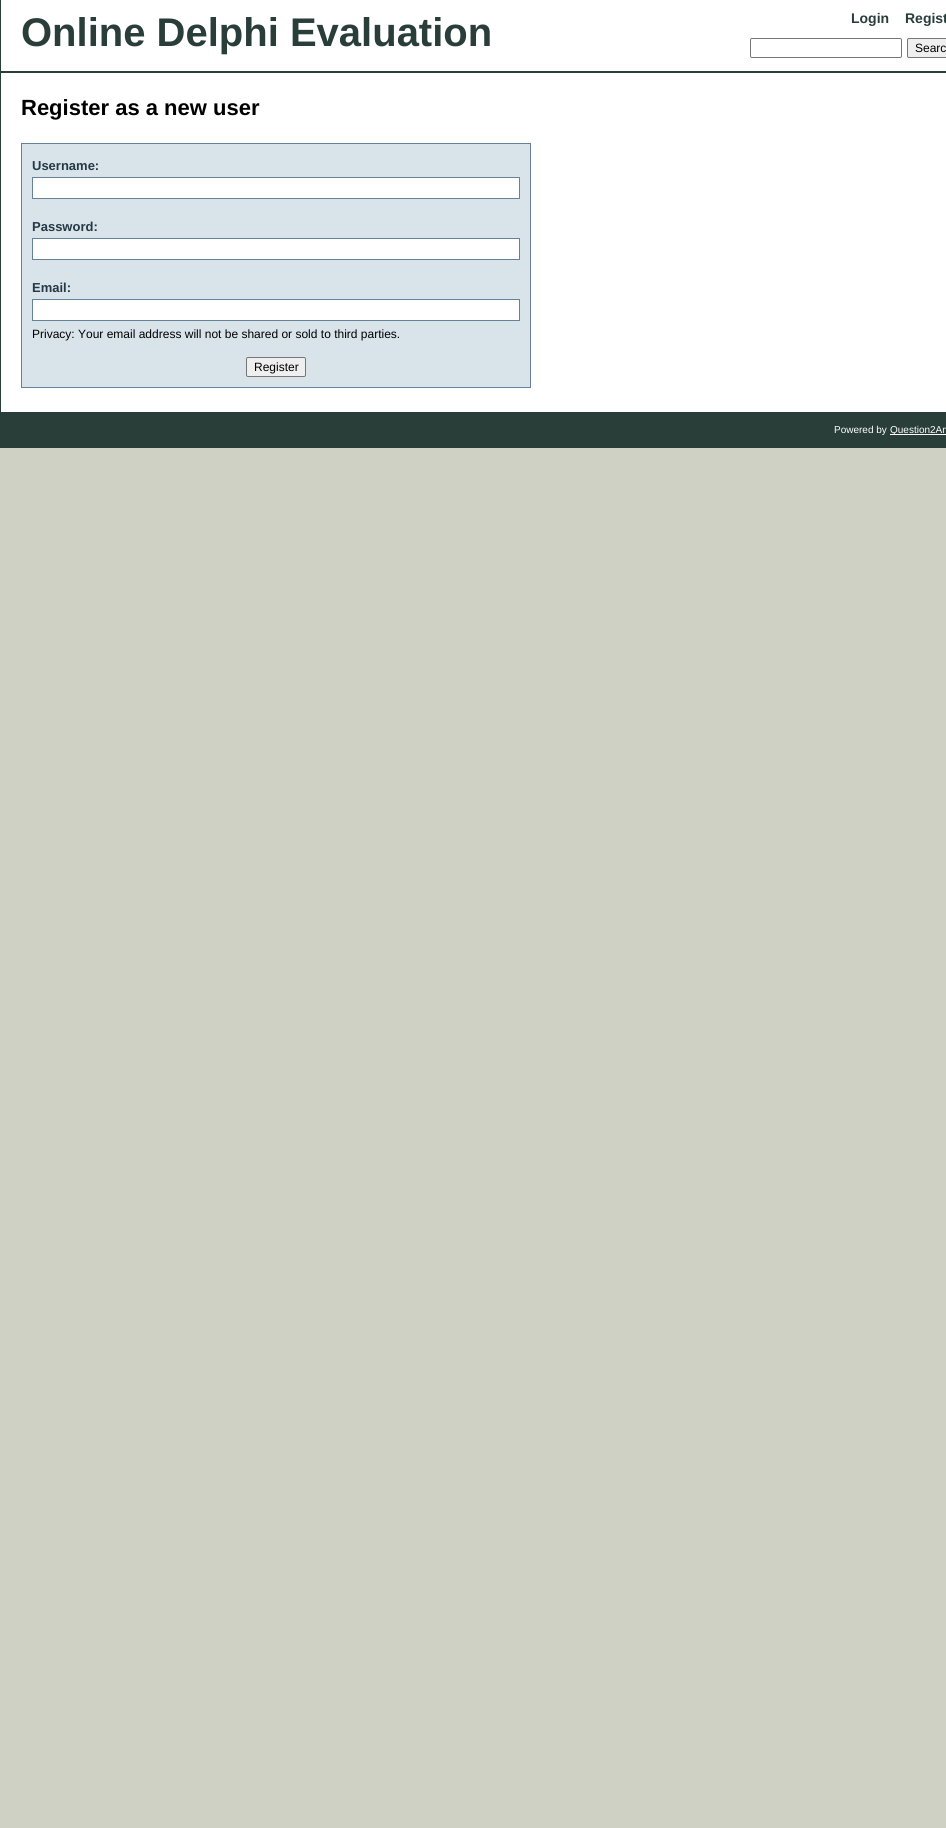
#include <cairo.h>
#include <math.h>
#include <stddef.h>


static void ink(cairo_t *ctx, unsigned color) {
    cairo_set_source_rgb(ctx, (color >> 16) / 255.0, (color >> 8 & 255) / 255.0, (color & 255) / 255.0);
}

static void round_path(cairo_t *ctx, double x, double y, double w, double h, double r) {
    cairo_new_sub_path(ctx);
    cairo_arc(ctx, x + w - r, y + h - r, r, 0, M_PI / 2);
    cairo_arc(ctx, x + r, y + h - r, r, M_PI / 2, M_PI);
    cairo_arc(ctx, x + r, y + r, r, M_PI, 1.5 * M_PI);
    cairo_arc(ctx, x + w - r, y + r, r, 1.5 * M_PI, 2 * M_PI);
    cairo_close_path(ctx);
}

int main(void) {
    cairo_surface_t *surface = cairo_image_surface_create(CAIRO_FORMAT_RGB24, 946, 1828);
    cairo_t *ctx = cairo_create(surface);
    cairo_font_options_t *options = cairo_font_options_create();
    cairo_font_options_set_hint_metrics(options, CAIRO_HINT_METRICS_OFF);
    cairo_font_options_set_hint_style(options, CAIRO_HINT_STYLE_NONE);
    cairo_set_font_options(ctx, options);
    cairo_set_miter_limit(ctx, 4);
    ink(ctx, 0xCFD1C4);
    cairo_paint(ctx);
    ink(ctx, 0xFFFFFF);
    cairo_rectangle(ctx, 1, 0, 945, 412);
    cairo_fill(ctx);
    cairo_rectangle(ctx, 0.5, -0.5, 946, 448);
    ink(ctx, 0x293D39);
    cairo_set_line_width(ctx, 1);
    cairo_stroke(ctx);
    cairo_rectangle(ctx, 1, 71, 945, 2);
    cairo_fill(ctx);
    cairo_select_font_face(ctx, "Liberation Sans", CAIRO_FONT_SLANT_NORMAL, CAIRO_FONT_WEIGHT_BOLD);
    cairo_set_font_size(ctx, 40);
    cairo_move_to(ctx, 21, 46);
    cairo_show_text(ctx, "Online Delphi Evaluation");
    cairo_set_font_size(ctx, 14);
    cairo_move_to(ctx, 851, 23);
    cairo_show_text(ctx, "Login");
    cairo_move_to(ctx, 905, 23);
    cairo_show_text(ctx, "Regist");
    round_path(ctx, 750.5, 38.5, 151, 19, 1.5);
    ink(ctx, 0x767676);
    cairo_stroke(ctx);
    ink(ctx, 0xEFEFEF);
    round_path(ctx, 907.5, 38.5, 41, 19, 1.5);
    cairo_fill_preserve(ctx);
    ink(ctx, 0x767676);
    cairo_stroke(ctx);
    cairo_select_font_face(ctx, "Liberation Sans", CAIRO_FONT_SLANT_NORMAL, CAIRO_FONT_WEIGHT_NORMAL);
    cairo_set_font_size(ctx, 12);
    ink(ctx, 0x000000);
    cairo_move_to(ctx, 915, 52);
    cairo_show_text(ctx, "Searc");
    cairo_select_font_face(ctx, "Liberation Sans", CAIRO_FONT_SLANT_NORMAL, CAIRO_FONT_WEIGHT_BOLD);
    cairo_set_font_size(ctx, 22);
    cairo_move_to(ctx, 21, 115);
    cairo_show_text(ctx, "Register as a new user");
    ink(ctx, 0xD9E3EA);
    cairo_rectangle(ctx, 21.5, 143.5, 509, 244);
    cairo_fill_preserve(ctx);
    ink(ctx, 0x658296);
    cairo_stroke(ctx);
    cairo_set_font_size(ctx, 13);
    ink(ctx, 0x253845);
    cairo_move_to(ctx, 32, 170);
    cairo_show_text(ctx, "Username:");
    ink(ctx, 0xFFFFFF);
    cairo_rectangle(ctx, 32.5, 177.5, 487, 21);
    cairo_fill_preserve(ctx);
    ink(ctx, 0x658296);
    cairo_stroke(ctx);
    ink(ctx, 0x253845);
    cairo_move_to(ctx, 32, 231);
    cairo_show_text(ctx, "Password:");
    ink(ctx, 0xFFFFFF);
    cairo_rectangle(ctx, 32.5, 238.5, 487, 21);
    cairo_fill_preserve(ctx);
    ink(ctx, 0x658296);
    cairo_stroke(ctx);
    ink(ctx, 0x253845);
    cairo_move_to(ctx, 32, 292);
    cairo_show_text(ctx, "Email:");
    ink(ctx, 0xFFFFFF);
    cairo_rectangle(ctx, 32.5, 299.5, 487, 21);
    cairo_fill_preserve(ctx);
    ink(ctx, 0x658296);
    cairo_stroke(ctx);
    cairo_select_font_face(ctx, "Liberation Sans", CAIRO_FONT_SLANT_NORMAL, CAIRO_FONT_WEIGHT_NORMAL);
    cairo_set_font_size(ctx, 12);
    ink(ctx, 0x000000);
    cairo_move_to(ctx, 32, 338);
    cairo_show_text(ctx, "Privacy: Your email address will not be shared or sold to third parties.");
    ink(ctx, 0xEFEFEF);
    round_path(ctx, 246.5, 357.5, 59, 19, 1.5);
    cairo_fill_preserve(ctx);
    ink(ctx, 0x767676);
    cairo_stroke(ctx);
    ink(ctx, 0x000000);
    cairo_move_to(ctx, 254, 371);
    cairo_show_text(ctx, "Register");
    ink(ctx, 0x293D39);
    cairo_rectangle(ctx, 1, 412, 945, 35);
    cairo_fill(ctx);
    cairo_set_font_size(ctx, 10);
    ink(ctx, 0xFFFFFF);
    cairo_move_to(ctx, 834, 433);
    cairo_show_text(ctx, "Powered by");
    cairo_rectangle(ctx, 890, 434, 56, 1);
    cairo_fill(ctx);
    cairo_move_to(ctx, 890, 433);
    cairo_show_text(ctx, "Question2An");
    cairo_surface_write_to_png(surface, "image.png");
    cairo_font_options_destroy(options);
    cairo_destroy(ctx);
    cairo_surface_destroy(surface);
    return 0;
}
